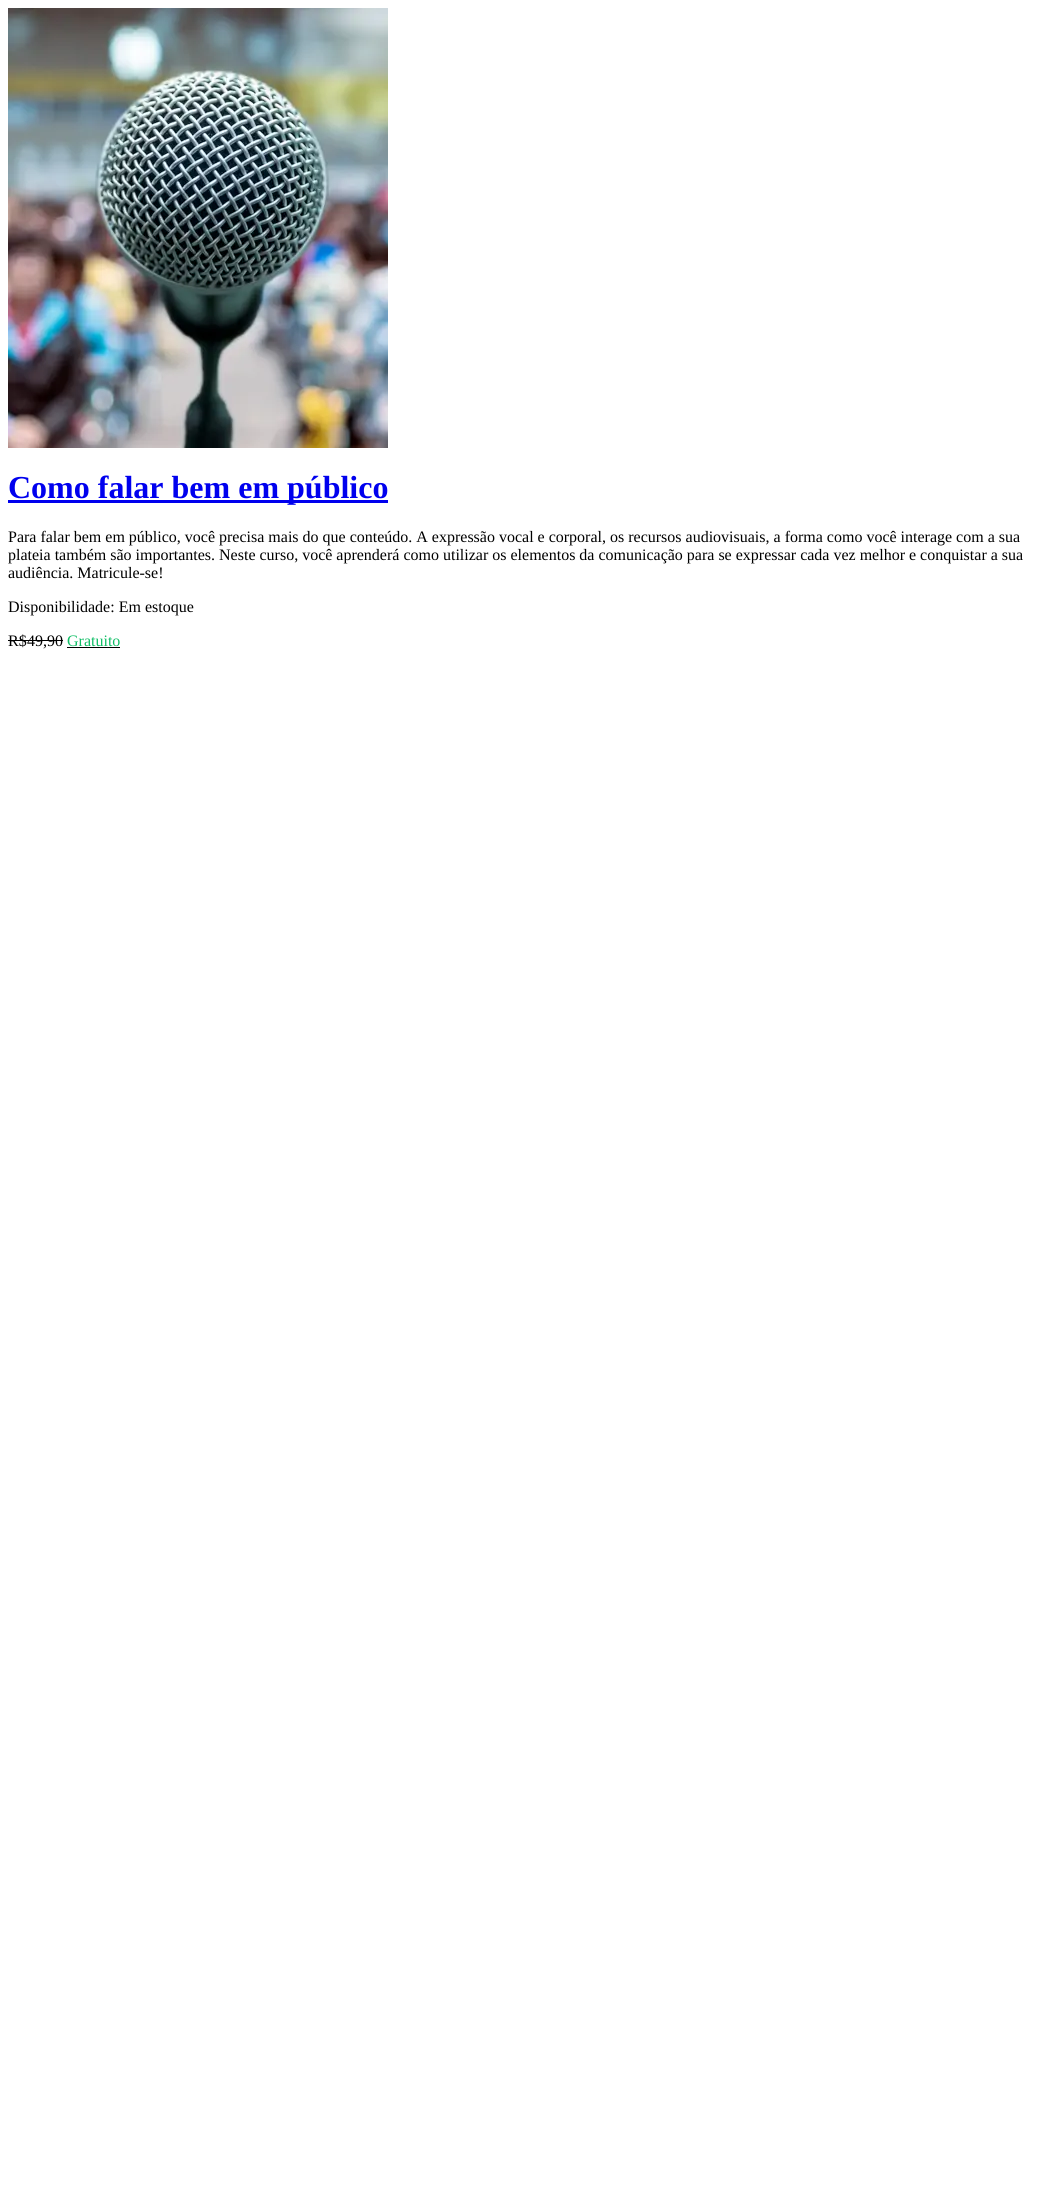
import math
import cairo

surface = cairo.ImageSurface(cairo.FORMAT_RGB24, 1046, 2203)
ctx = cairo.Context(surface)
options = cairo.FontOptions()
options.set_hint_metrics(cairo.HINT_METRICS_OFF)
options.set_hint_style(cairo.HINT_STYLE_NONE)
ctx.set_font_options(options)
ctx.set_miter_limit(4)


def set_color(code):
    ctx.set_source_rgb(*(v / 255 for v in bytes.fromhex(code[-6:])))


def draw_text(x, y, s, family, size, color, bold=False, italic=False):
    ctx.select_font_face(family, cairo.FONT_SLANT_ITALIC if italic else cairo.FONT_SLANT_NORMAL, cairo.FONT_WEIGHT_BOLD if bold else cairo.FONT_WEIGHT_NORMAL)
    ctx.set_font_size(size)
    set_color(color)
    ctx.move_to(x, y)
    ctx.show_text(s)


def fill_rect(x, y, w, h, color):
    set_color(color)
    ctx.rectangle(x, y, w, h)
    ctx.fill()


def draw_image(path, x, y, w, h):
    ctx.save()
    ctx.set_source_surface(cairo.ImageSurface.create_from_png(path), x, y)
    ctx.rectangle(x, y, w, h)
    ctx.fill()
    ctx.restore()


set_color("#ffffff")
ctx.paint()
draw_image("assets/img1.png", 8, 8, 380, 440)
fill_rect(8, 500, 380, 3, "#0000ee")
draw_text(8, 498, "Como falar bem em público", "Liberation Serif", 32, "#0000ee", bold=True)
draw_text(8, 542, "Para falar bem em público, você precisa mais do que conteúdo. A expressão vocal e corporal, os recursos audiovisuais, a forma como você interage com a sua", "Liberation Serif", 16, "#000000")
draw_text(8, 560, "plateia também são importantes. Neste curso, você aprenderá como utilizar os elementos da comunicação para se expressar cada vez melhor e conquistar a sua", "Liberation Serif", 16, "#000000")
draw_text(8, 578, "audiência. Matricule-se!", "Liberation Serif", 16, "#000000")
draw_text(8, 612, "Disponibilidade: Em estoque", "Liberation Serif", 16, "#000000")
draw_text(8, 646, "R$", "Liberation Serif", 16, "#000000")
fill_rect(8, 640, 19, 1, "#000000")
fill_rect(27, 640, 36, 1, "#000000")
draw_text(27, 646, "49,90", "Liberation Serif", 16, "#000000")
draw_text(67, 646, "Gratuito", "Liberation Serif", 16, "#0ebe65")
fill_rect(67, 647, 53, 1, "#000000")
surface.write_to_png("output.png")
